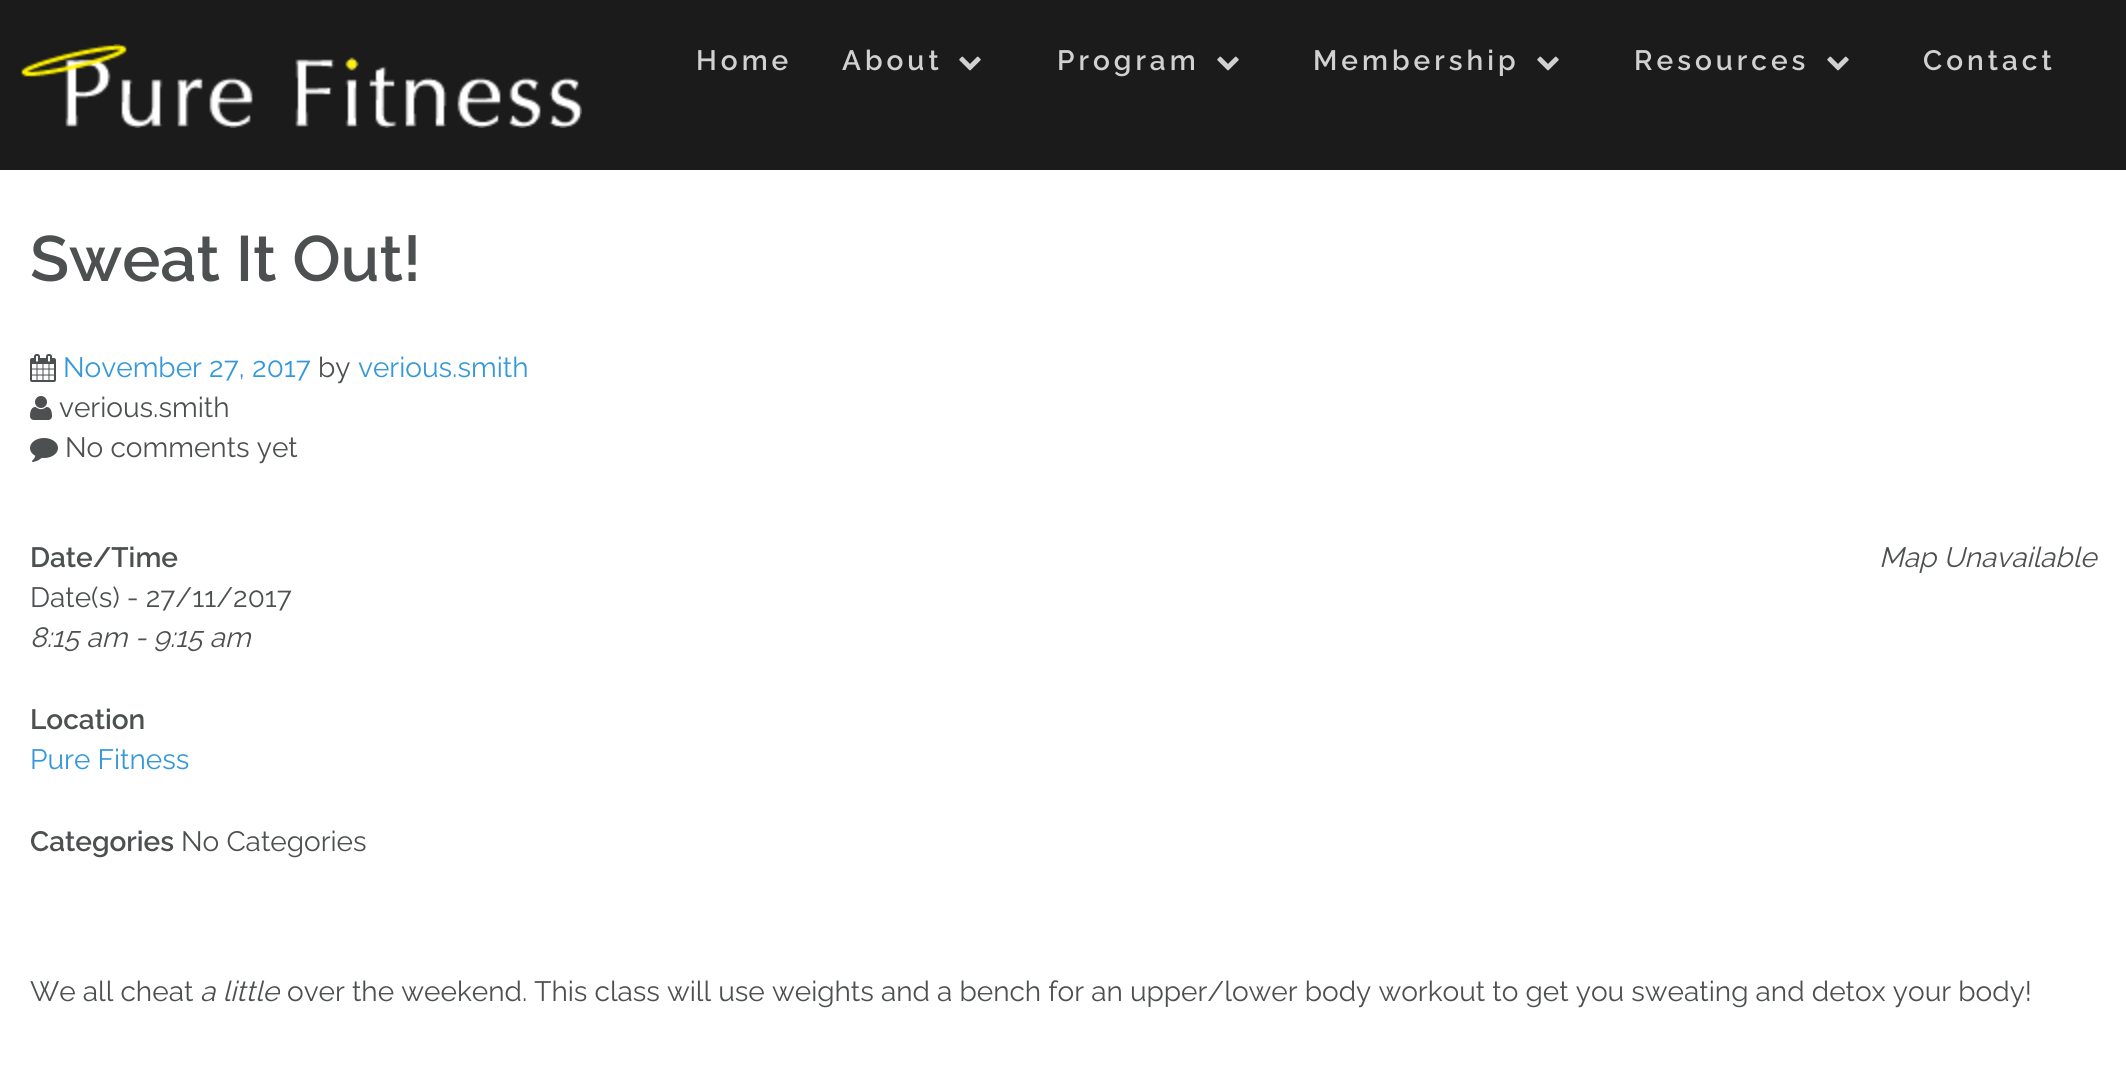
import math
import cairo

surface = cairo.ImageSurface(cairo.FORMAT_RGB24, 2126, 1092)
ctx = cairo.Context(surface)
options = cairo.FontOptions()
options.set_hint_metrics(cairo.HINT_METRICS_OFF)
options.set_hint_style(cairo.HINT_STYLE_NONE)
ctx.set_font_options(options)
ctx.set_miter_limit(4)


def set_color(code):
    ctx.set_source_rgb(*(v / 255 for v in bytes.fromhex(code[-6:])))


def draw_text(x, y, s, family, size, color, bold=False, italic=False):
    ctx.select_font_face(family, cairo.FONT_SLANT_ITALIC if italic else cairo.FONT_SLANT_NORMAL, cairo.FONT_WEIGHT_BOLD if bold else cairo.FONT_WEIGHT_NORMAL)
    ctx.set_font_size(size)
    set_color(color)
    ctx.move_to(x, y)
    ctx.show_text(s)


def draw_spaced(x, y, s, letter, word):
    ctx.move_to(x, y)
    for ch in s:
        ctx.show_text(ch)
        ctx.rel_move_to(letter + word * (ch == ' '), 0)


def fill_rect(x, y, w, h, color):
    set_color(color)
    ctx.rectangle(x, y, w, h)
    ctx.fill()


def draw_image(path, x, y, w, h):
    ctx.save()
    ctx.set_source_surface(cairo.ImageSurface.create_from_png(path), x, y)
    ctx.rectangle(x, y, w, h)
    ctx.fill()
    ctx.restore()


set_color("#ffffff")
ctx.paint()
fill_rect(0, 0, 2126, 170, "#1b1b1b")
draw_image("assets/img1.png", 21, 44, 561, 84)
ctx.select_font_face("Raleway SemiBold")
ctx.set_font_size(28)
set_color("#d1d1d1")
draw_spaced(696, 70, "Home", 4, 0)
draw_spaced(842, 70, "About", 4, 0)
draw_image("assets/img2.png", 959, 56, 22, 15)
draw_spaced(1057, 70, "Program", 4, 0)
draw_image("assets/img2.png", 1217, 56, 22, 15)
draw_spaced(1313, 70, "Membership", 4, 0)
draw_image("assets/img2.png", 1537, 56, 22, 15)
draw_spaced(1634, 70, "Resources", 4, 0)
draw_image("assets/img2.png", 1827, 56, 22, 15)
draw_spaced(1923, 70, "Contact", 4, 0)
draw_text(30, 281, "Sweat It Out!", "Raleway SemiBold", 64, "#4d5051")
draw_image("assets/img3.png", 30, 354, 26, 28)
draw_text(63, 377, "November 27, 2017", "Raleway", 28, "#3498db")
draw_text(318, 377, "by", "Raleway", 28, "#4d5051")
draw_text(358, 377, "verious.smith", "Raleway", 28, "#3498db")
draw_image("assets/img4.png", 30, 396, 22, 24)
draw_text(59, 417, "verious.smith", "Raleway", 28, "#4d5051")
draw_image("assets/img5.png", 30, 438, 28, 24)
draw_text(65, 457, "No comments yet", "Raleway", 28, "#4d5051")
draw_text(30, 567, "Date/Time", "Raleway SemiBold", 28, "#4d5051")
draw_text(30, 607, "Date(s) - 27/11/2017", "Raleway", 28, "#4d5051")
draw_text(30, 647, "8:15 am - 9:15 am", "Raleway", 28, "#4d5051", italic=True)
draw_text(1879, 567, "Map Unavailable", "Raleway", 28, "#4d5051", italic=True)
draw_text(30, 729, "Location", "Raleway SemiBold", 28, "#4d5051")
draw_text(30, 769, "Pure Fitness", "Raleway", 28, "#3498db")
draw_text(30, 851, "Categories", "Raleway SemiBold", 28, "#4d5051")
draw_text(181, 851, "No Categories", "Raleway", 28, "#4d5051")
draw_text(30, 1001, "We all cheat", "Raleway", 28, "#4d5051")
draw_text(200, 1001, "a little", "Raleway", 28, "#4d5051", italic=True)
draw_text(287, 1001, "over the weekend. This class will use weights and a bench for an upper/lower body workout to get you sweating and detox your body!", "Raleway", 28, "#4d5051")
surface.write_to_png("output.png")
